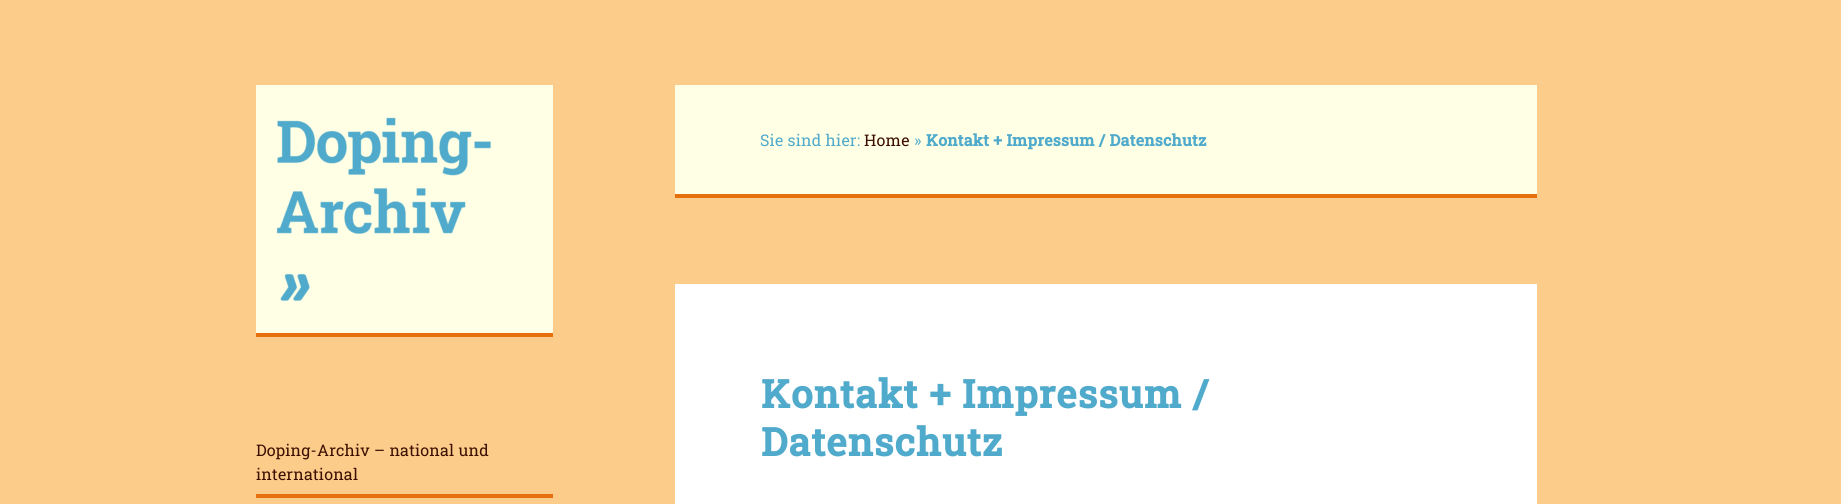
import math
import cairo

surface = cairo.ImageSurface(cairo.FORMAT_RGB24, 1841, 504)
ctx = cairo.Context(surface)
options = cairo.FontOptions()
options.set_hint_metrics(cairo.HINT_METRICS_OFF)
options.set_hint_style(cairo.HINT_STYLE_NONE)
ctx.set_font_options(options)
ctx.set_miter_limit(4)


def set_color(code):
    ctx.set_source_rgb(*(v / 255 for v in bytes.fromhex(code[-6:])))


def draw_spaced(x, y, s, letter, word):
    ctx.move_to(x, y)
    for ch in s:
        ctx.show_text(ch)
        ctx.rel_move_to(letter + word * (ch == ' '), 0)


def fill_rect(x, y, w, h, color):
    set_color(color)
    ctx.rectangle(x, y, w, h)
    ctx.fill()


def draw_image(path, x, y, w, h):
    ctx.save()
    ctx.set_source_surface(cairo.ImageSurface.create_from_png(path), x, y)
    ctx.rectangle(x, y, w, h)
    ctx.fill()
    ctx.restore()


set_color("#fccc8b")
ctx.paint()
fill_rect(675, 85, 862, 109, "#ffffe6")
fill_rect(675, 194, 862, 4, "#e5700c")
ctx.select_font_face("Roboto Slab")
ctx.set_font_size(16)
set_color("#50aacb")
draw_spaced(760, 146, "Sie sind hier:", 0.2, 0)
set_color("#3d0f00")
draw_spaced(864, 146, "Home", 0.2, 0)
set_color("#50aacb")
draw_spaced(914, 146, "»", 0.2, 0)
ctx.select_font_face("Roboto Slab", cairo.FONT_SLANT_NORMAL, cairo.FONT_WEIGHT_BOLD)
draw_spaced(926, 146, "Kontakt + Impressum / Datenschutz", 0.2, 0)
fill_rect(675, 284, 862, 220, "#ffffff")
ctx.set_font_size(39)
set_color("#50aacb")
draw_spaced(761, 408, "Kontakt + Impressum /", 1, 0)
draw_spaced(761, 456, "Datenschutz", 1, 0)
fill_rect(256, 85, 297, 248, "#ffffe6")
fill_rect(256, 333, 297, 4, "#e5700c")
draw_image("assets/img1.png", 276, 117, 215, 184)
ctx.select_font_face("Roboto Slab")
ctx.set_font_size(16)
set_color("#3d0f00")
draw_spaced(256, 456, "Doping-Archiv – national und", 0.2, 0)
draw_spaced(256, 480, "international", 0.2, 0)
fill_rect(256, 494, 297, 4, "#e5700c")
surface.write_to_png("output.png")
